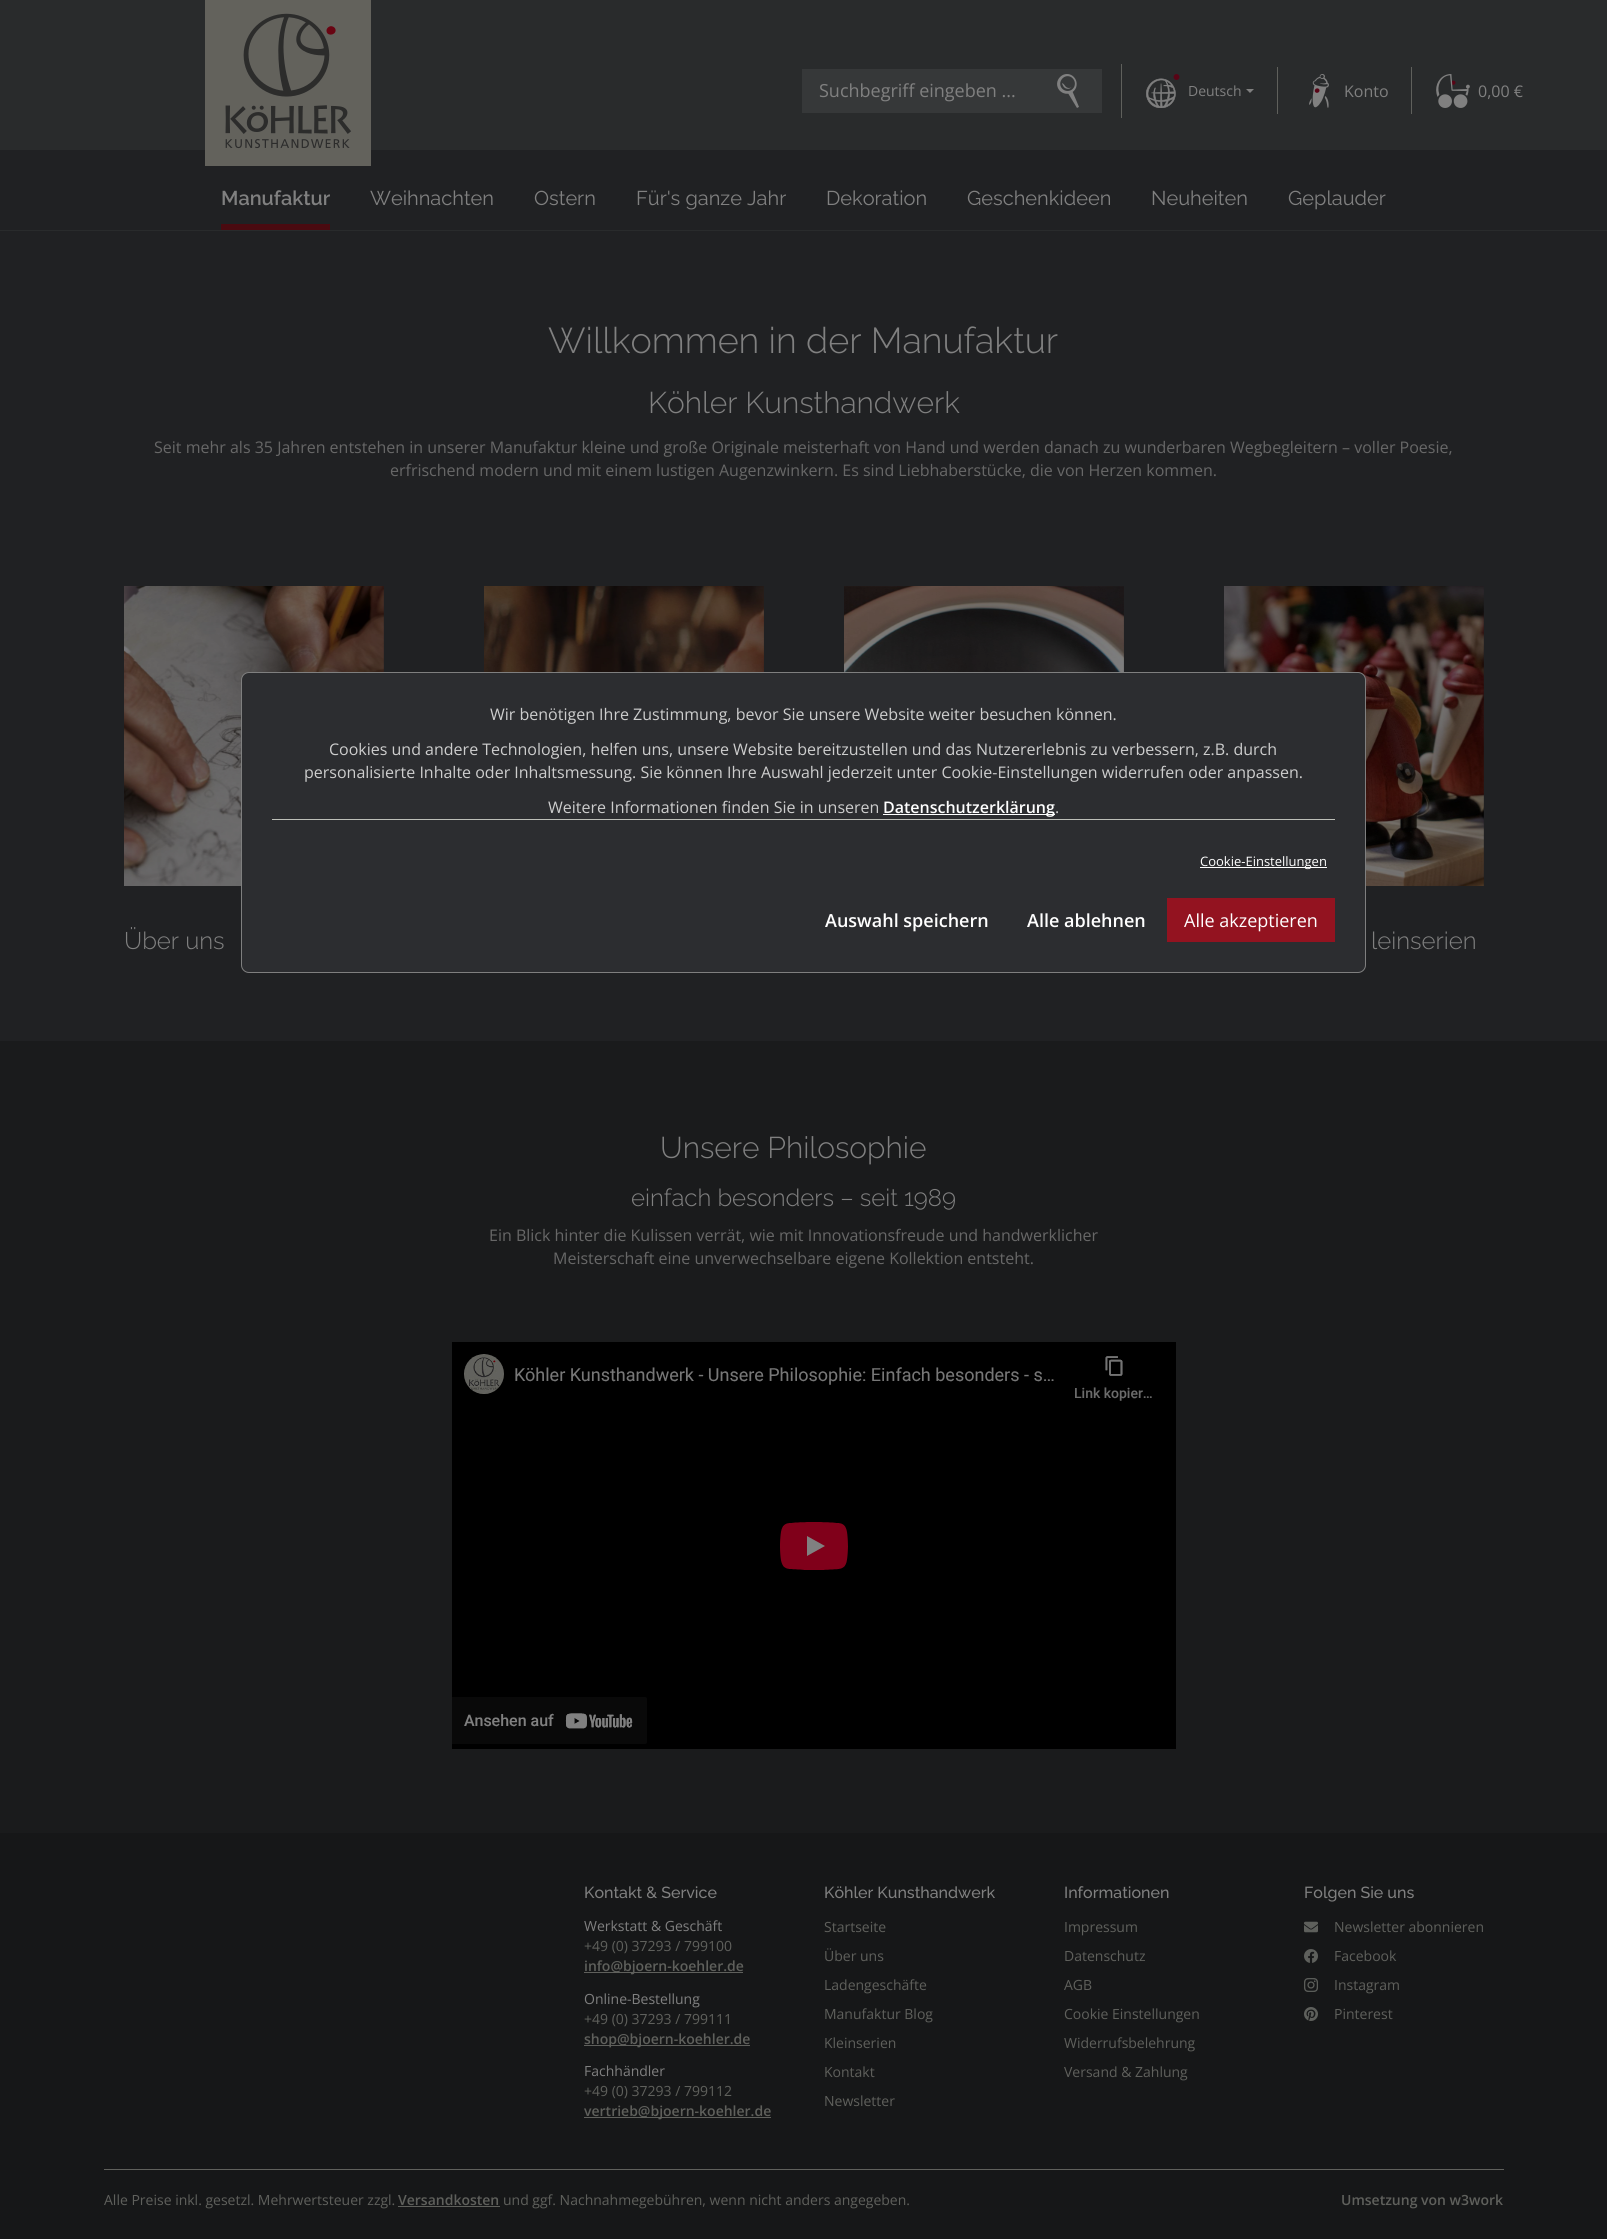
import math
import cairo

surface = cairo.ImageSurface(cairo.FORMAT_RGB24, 1607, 2239)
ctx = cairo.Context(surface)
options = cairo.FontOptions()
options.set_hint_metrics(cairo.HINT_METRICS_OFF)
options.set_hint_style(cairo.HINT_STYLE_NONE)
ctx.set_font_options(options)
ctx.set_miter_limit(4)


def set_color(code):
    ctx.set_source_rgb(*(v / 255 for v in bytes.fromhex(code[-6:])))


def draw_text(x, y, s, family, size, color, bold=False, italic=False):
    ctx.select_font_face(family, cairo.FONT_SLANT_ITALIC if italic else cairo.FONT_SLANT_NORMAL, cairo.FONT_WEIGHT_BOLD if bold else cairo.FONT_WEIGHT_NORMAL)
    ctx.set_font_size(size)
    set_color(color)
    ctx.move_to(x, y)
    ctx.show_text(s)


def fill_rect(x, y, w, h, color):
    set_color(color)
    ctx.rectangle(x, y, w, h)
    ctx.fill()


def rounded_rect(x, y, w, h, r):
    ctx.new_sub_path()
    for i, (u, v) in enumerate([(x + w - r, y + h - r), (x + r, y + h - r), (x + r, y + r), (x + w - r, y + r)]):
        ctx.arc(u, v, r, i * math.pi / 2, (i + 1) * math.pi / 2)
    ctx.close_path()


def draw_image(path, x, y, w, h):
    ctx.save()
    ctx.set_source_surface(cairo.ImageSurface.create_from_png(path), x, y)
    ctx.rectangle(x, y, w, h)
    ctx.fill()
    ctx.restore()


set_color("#202123")
ctx.paint()
fill_rect(0, 0, 1607, 150, "#292b2c")
draw_image("assets/img1.png", 205, 0, 166, 166)
fill_rect(803, 70, 232, 42, "#363839")
fill_rect(802, 69, 234, 1, "#363839")
fill_rect(802, 112, 234, 1, "#363839")
fill_rect(802, 69, 1, 44, "#363839")
draw_text(819, 97, "Suchbegriff eingeben ...", "Open Sans", 18, "#808080")
fill_rect(1035, 69, 67, 44, "#363839")
draw_image("assets/img2.png", 1057, 74, 22, 34)
fill_rect(1121, 64, 1, 54, "#5f605c")
draw_image("assets/img3.png", 1146, 74, 34, 34)
draw_text(1188, 96, "Deutsch", "Open Sans", 14, "#808080")
ctx.new_path()
ctx.move_to(1246, 89)
ctx.line_to(1254, 89)
ctx.line_to(1250, 93)
ctx.close_path()
ctx.fill()
fill_rect(1277, 67, 1, 47, "#5f605c")
draw_image("assets/img4.png", 1309, 74, 20, 34)
draw_text(1344, 97, "Konto", "Open Sans", 16, "#808080")
fill_rect(1411, 67, 1, 47, "#5f605c")
draw_image("assets/img5.png", 1436, 74, 34, 34)
draw_text(1478, 97, "0,00 €", "Open Sans", 16, "#808080")
draw_text(221, 205, "Manufaktur", "Raleway SemiBold", 20, "#808080")
fill_rect(221, 224, 109, 6, "#4a0a10")
draw_text(370, 205, "Weihnachten", "Raleway", 20, "#808080")
draw_text(534, 205, "Ostern", "Raleway", 20, "#808080")
draw_text(636, 205, "Für's ganze Jahr", "Raleway", 20, "#808080")
draw_text(826, 205, "Dekoration", "Raleway", 20, "#808080")
draw_text(967, 205, "Geschenkideen", "Raleway", 20, "#808080")
draw_text(1151, 205, "Neuheiten", "Raleway", 20, "#808080")
draw_text(1288, 205, "Geplauder", "Raleway", 20, "#808080")
fill_rect(0, 230, 1607, 1, "#292b2c")
draw_text(548, 353, "Willkommen in der Manufaktur", "Raleway Light", 36, "#808080")
draw_text(648, 413, "Köhler Kunsthandwerk", "Raleway Light", 30, "#808080")
draw_text(154, 453, "Seit mehr als 35 Jahren entstehen in unserer Manufaktur kleine und große Originale meisterhaft von Hand und werden danach zu wunderbaren Wegbegleitern – voller Poesie,", "Open Sans", 16, "#676767")
draw_text(390, 476, "erfrischend modern und mit einem lustigen Augenzwinkern. Es sind Liebhaberstücke, die von Herzen kommen.", "Open Sans", 16, "#676767")
draw_image("assets/img6.png", 484, 586, 280, 86)
draw_image("assets/img7.png", 844, 586, 280, 86)
draw_image("assets/img8.png", 124, 586, 260, 300)
draw_text(124, 949, "Über uns", "Raleway Light", 24, "#808080")
draw_image("assets/img9.png", 1224, 586, 260, 300)
draw_text(1371, 949, "leinserien", "Raleway Light", 24, "#808080")
fill_rect(0, 1041, 1607, 792, "#1a1b1c")
draw_text(660, 1158, "Unsere Philosophie", "Raleway Light", 30, "#808080")
draw_text(631, 1206, "einfach besonders – seit 1989", "Raleway Light", 24, "#808080")
draw_text(489, 1241, "Ein Blick hinter die Kulissen verrät, wie mit Innovationsfreude und handwerklicher", "Open Sans", 16, "#676767")
draw_text(553, 1264, "Meisterschaft eine unverwechselbare eigene Kollektion entsteht.", "Open Sans", 16, "#676767")
draw_image("assets/img10.png", 452, 1342, 724, 407)
set_color("#2c2d30")
rounded_rect(241.5, 672.5, 1124, 300, 7.5)
ctx.fill_preserve()
set_color("#7f7f7f")
ctx.set_line_width(1)
ctx.stroke()
fill_rect(272, 819, 1063, 1, "#bdbfb8")
draw_text(490, 720, "Wir benötigen Ihre Zustimmung, bevor Sie unsere Website weiter besuchen können.", "Open Sans", 16, "#cdcdcd")
draw_text(329, 755, "Cookies und andere Technologien, helfen uns, unsere Website bereitzustellen und das Nutzererlebnis zu verbessern, z.B. durch", "Open Sans", 16, "#cdcdcd")
draw_text(304, 778, "personalisierte Inhalte oder Inhaltsmessung. Sie können Ihre Auswahl jederzeit unter Cookie-Einstellungen widerrufen oder anpassen.", "Open Sans", 16, "#cdcdcd")
draw_text(548, 813, "Weitere Informationen finden Sie in unseren", "Open Sans", 16, "#cdcdcd")
fill_rect(883, 814, 172, 1, "#ffffff")
draw_text(883, 813, "Datenschutzerklärung", "Open Sans SemiBold", 16, "#ffffff")
draw_text(1055, 813, ".", "Open Sans", 16, "#cdcdcd")
fill_rect(1200, 867, 127, 1, "#ffffff")
draw_text(1200, 866, "Cookie-Einstellungen", "Open Sans", 13, "#ffffff")
draw_text(825, 927, "Auswahl speichern", "Open Sans SemiBold", 18, "#ffffff")
draw_text(1027, 927, "Alle ablehnen", "Open Sans SemiBold", 18, "#ffffff")
fill_rect(1167, 898, 168, 44, "#931320")
draw_text(1184, 927, "Alle akzeptieren", "Open Sans", 18, "#ffffff")
fill_rect(0, 1833, 1607, 406, "#161718")
draw_text(584, 1898, "Kontakt & Service", "Raleway Medium", 16, "#808080")
draw_text(584, 1931, "Werkstatt & Geschäft", "Open Sans", 14, "#808080")
draw_text(584, 1951, "+49 (0) 37293 / 799100", "Open Sans", 14, "#5f605c")
fill_rect(584, 1972, 159, 1, "#5f605c")
draw_text(584, 1971, "info@bjoern-koehler.de", "Open Sans SemiBold", 14, "#5f605c")
draw_text(584, 2004, "Online-Bestellung", "Open Sans", 14, "#808080")
draw_text(584, 2024, "+49 (0) 37293 / 799111", "Open Sans", 14, "#5f605c")
fill_rect(584, 2045, 166, 1, "#5f605c")
draw_text(584, 2044, "shop@bjoern-koehler.de", "Open Sans SemiBold", 14, "#5f605c")
draw_text(584, 2076, "Fachhändler", "Open Sans", 14, "#808080")
draw_text(584, 2096, "+49 (0) 37293 / 799112", "Open Sans", 14, "#5f605c")
fill_rect(584, 2117, 187, 1, "#5f605c")
draw_text(584, 2116, "vertrieb@bjoern-koehler.de", "Open Sans SemiBold", 14, "#5f605c")
draw_text(824, 1898, "Köhler Kunsthandwerk", "Raleway Medium", 16, "#808080")
draw_text(824, 1932, "Startseite", "Open Sans", 14, "#5f605c")
draw_text(824, 1961, "Über uns", "Open Sans", 14, "#5f605c")
draw_text(824, 1990, "Ladengeschäfte", "Open Sans", 14, "#5f605c")
draw_text(824, 2019, "Manufaktur Blog", "Open Sans", 14, "#5f605c")
draw_text(824, 2048, "Kleinserien", "Open Sans", 14, "#5f605c")
draw_text(824, 2077, "Kontakt", "Open Sans", 14, "#5f605c")
draw_text(824, 2106, "Newsletter", "Open Sans", 14, "#5f605c")
draw_text(1064, 1898, "Informationen", "Raleway Medium", 16, "#808080")
draw_text(1064, 1932, "Impressum", "Open Sans", 14, "#5f605c")
draw_text(1064, 1961, "Datenschutz", "Open Sans", 14, "#5f605c")
draw_text(1064, 1990, "AGB", "Open Sans", 14, "#5f605c")
draw_text(1064, 2019, "Cookie Einstellungen", "Open Sans", 14, "#5f605c")
draw_text(1064, 2048, "Widerrufsbelehrung", "Open Sans", 14, "#5f605c")
draw_text(1064, 2077, "Versand & Zahlung", "Open Sans", 14, "#5f605c")
draw_text(1304, 1898, "Folgen Sie uns", "Raleway Medium", 16, "#808080")
draw_image("assets/img11.png", 1304, 1921, 14, 12)
draw_text(1334, 1932, "Newsletter abonnieren", "Open Sans", 14, "#5f605c")
draw_image("assets/img12.png", 1304, 1949, 14, 14)
draw_text(1334, 1961, "Facebook", "Open Sans", 14, "#5f605c")
draw_image("assets/img13.png", 1304, 1978, 14, 14)
draw_text(1334, 1990, "Instagram", "Open Sans", 14, "#5f605c")
draw_image("assets/img14.png", 1304, 2007, 14, 14)
draw_text(1334, 2019, "Pinterest", "Open Sans", 14, "#5f605c")
fill_rect(104, 2169, 1400, 1, "#5f605c")
draw_text(104, 2205, "Alle Preise inkl. gesetzl. Mehrwertsteuer zzgl.", "Open Sans", 14, "#5f605c")
draw_text(398, 2205, "Versandkosten", "Open Sans SemiBold", 14, "#5f605c")
fill_rect(398, 2206, 102, 1, "#5f605c")
draw_text(503, 2205, "und ggf. Nachnahmegebühren, wenn nicht anders angegeben.", "Open Sans", 14, "#5f605c")
draw_text(1341, 2205, "Umsetzung von w3work", "Open Sans SemiBold", 14, "#5f605c")
surface.write_to_png("output.png")
